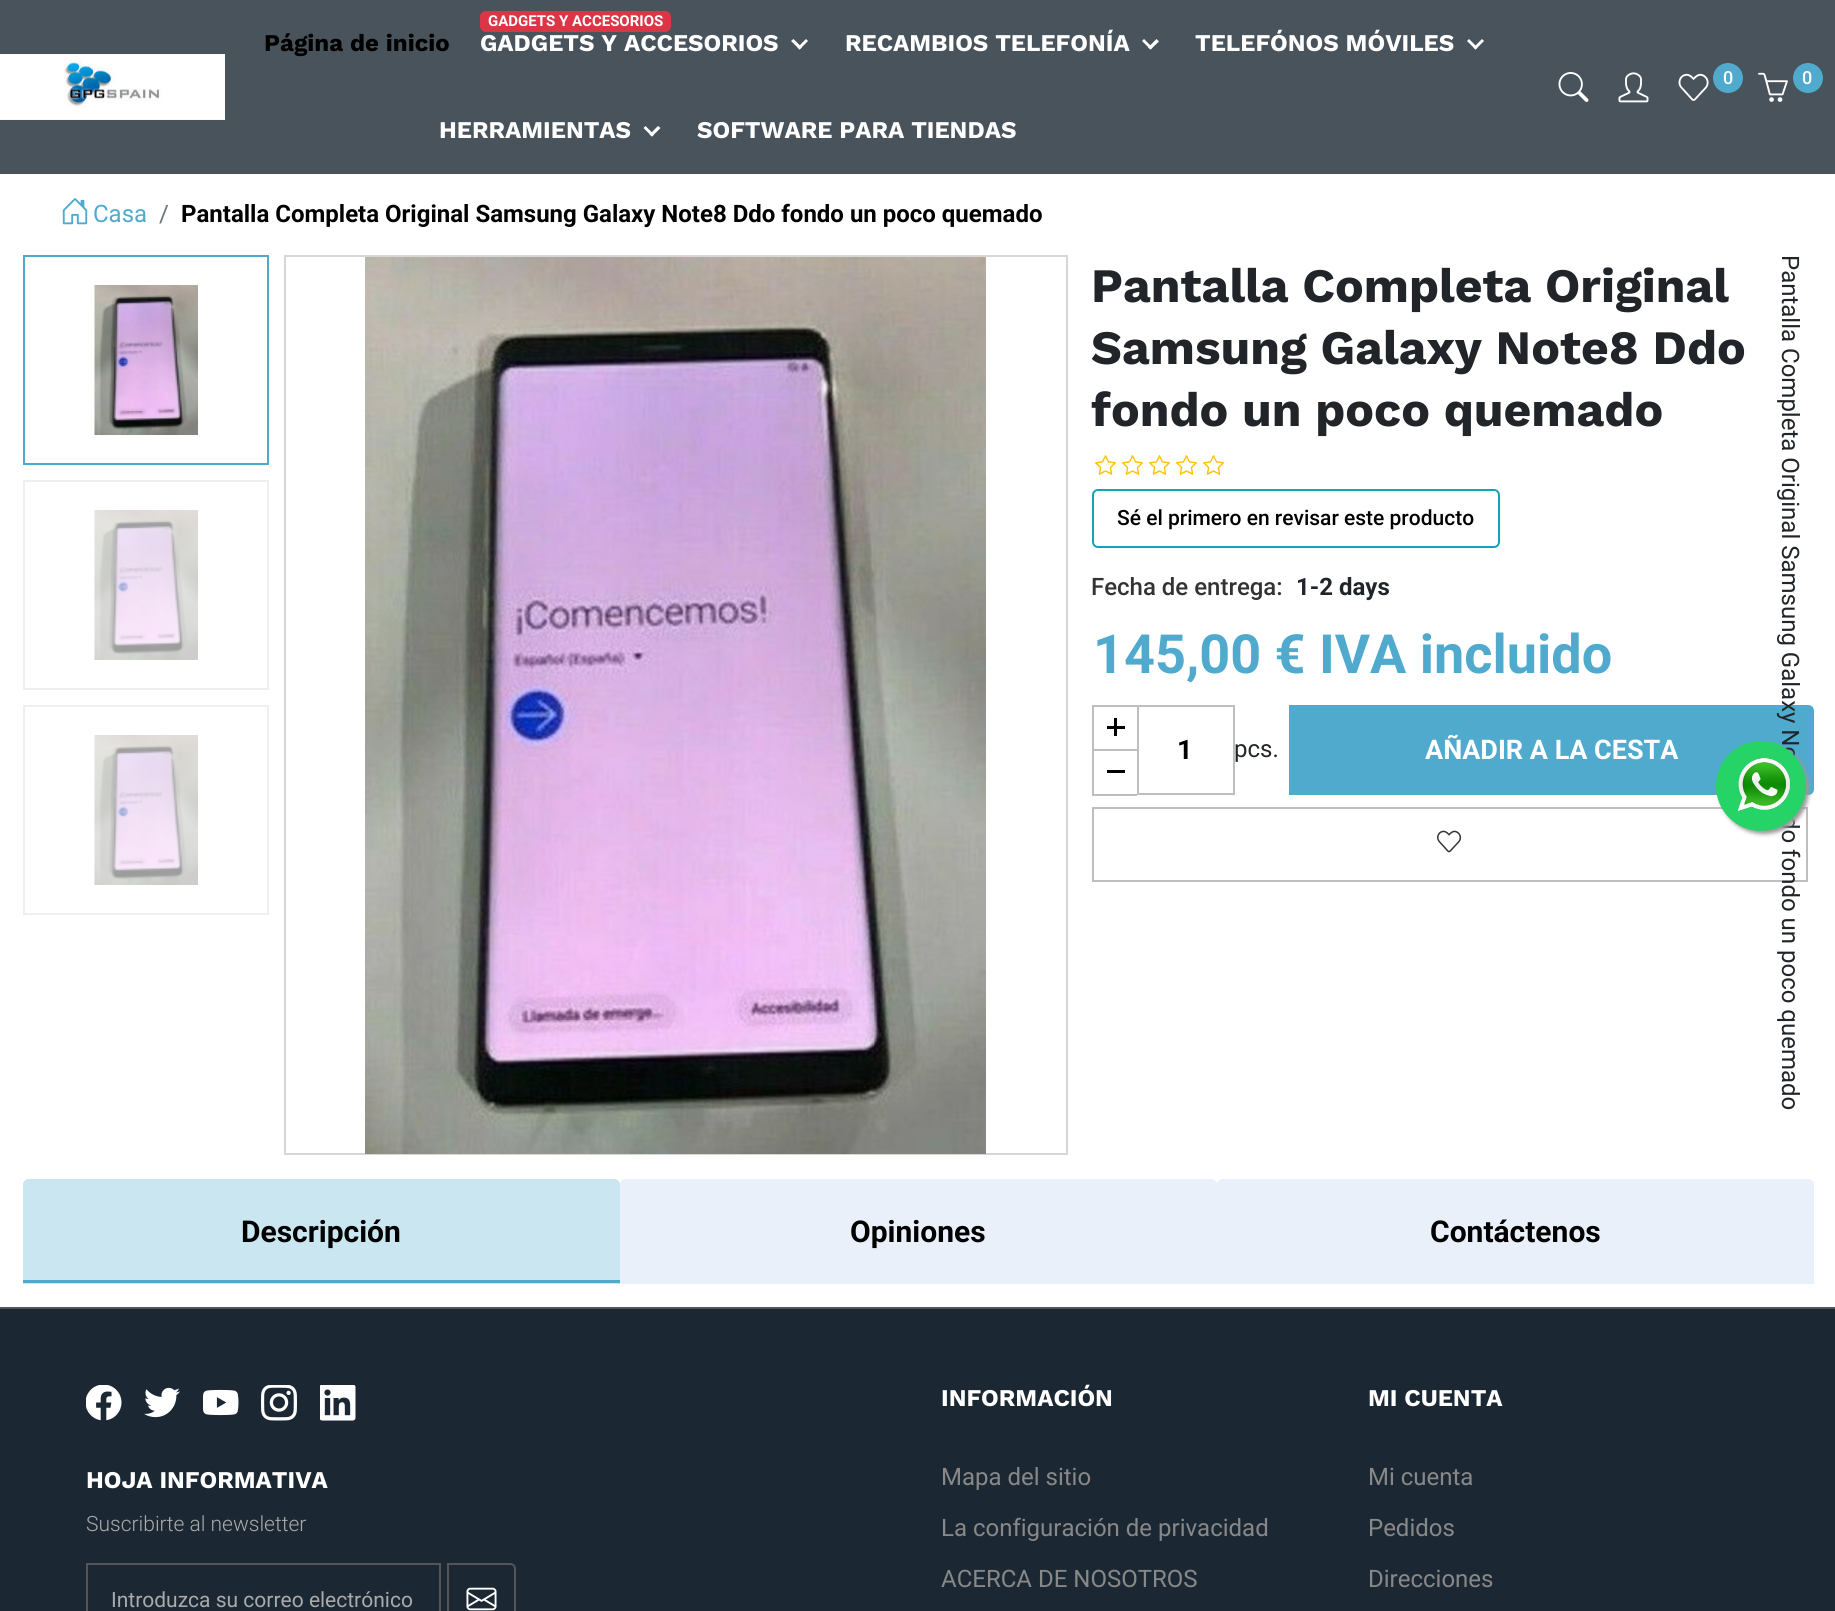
import math
import cairo

surface = cairo.ImageSurface(cairo.FORMAT_RGB24, 1835, 1611)
ctx = cairo.Context(surface)
options = cairo.FontOptions()
options.set_hint_metrics(cairo.HINT_METRICS_OFF)
options.set_hint_style(cairo.HINT_STYLE_NONE)
ctx.set_font_options(options)
ctx.set_miter_limit(4)


def set_color(code):
    ctx.set_source_rgb(*(v / 255 for v in bytes.fromhex(code[-6:])))


def draw_text(x, y, s, family, size, color, bold=False, italic=False):
    ctx.select_font_face(family, cairo.FONT_SLANT_ITALIC if italic else cairo.FONT_SLANT_NORMAL, cairo.FONT_WEIGHT_BOLD if bold else cairo.FONT_WEIGHT_NORMAL)
    ctx.set_font_size(size)
    set_color(color)
    ctx.move_to(x, y)
    ctx.show_text(s)


def fill_rect(x, y, w, h, color):
    set_color(color)
    ctx.rectangle(x, y, w, h)
    ctx.fill()


def rounded_rect(x, y, w, h, r):
    ctx.new_sub_path()
    for i, (u, v) in enumerate([(x + w - r, y + h - r), (x + r, y + h - r), (x + r, y + r), (x + w - r, y + r)]):
        ctx.arc(u, v, r, i * math.pi / 2, (i + 1) * math.pi / 2)
    ctx.close_path()


def draw_shadow(x, y, w, h, r, blur, alpha):
    ctx.push_group_with_content(cairo.CONTENT_ALPHA)
    ctx.set_operator(cairo.OPERATOR_SOURCE)
    for i in range(15, -16, -2):
        e = blur * i / 6
        if min(w, h) + 2 * e > 0:
            ctx.set_source_rgba(0, 0, 0, alpha * math.erfc((i - 1) / 8.5) / 2)
            rounded_rect(x - e, y - e, w + 2 * e, h + 2 * e, max(0, min(r + e + blur * .6, min(w, h) / 2 + e)))
            ctx.fill()
    ctx.mask(ctx.pop_group())


def draw_image(path, x, y, w, h):
    ctx.save()
    ctx.set_source_surface(cairo.ImageSurface.create_from_png(path), x, y)
    ctx.rectangle(x, y, w, h)
    ctx.fill()
    ctx.restore()


set_color("#ffffff")
ctx.paint()
fill_rect(0, 0, 1835, 174, "#49535c")
draw_image("assets/img1.png", 0, 54, 225, 66)
draw_text(264, 51, "Página de inicio", "Work Sans", 24, "#000000", bold=True)
set_color("#dc3545")
rounded_rect(480, 11, 191, 21, 6)
ctx.fill()
draw_text(488, 26, "GADGETS Y ACCESORIOS", "Roboto", 15, "#ffffff", bold=True)
draw_text(480, 51, "GADGETS Y ACCESORIOS", "Work Sans", 24, "#ffffff", bold=True)
ctx.new_path()
ctx.move_to(808, 41)
ctx.line_to(799.5, 49.5)
ctx.line_to(797.5, 47.5)
ctx.line_to(806, 39)
ctx.close_path()
ctx.fill()
ctx.new_path()
ctx.move_to(802, 47.5)
ctx.line_to(799.5, 49.5)
ctx.line_to(791, 41)
ctx.line_to(793.5, 39)
ctx.close_path()
ctx.fill()
draw_text(845, 51, "RECAMBIOS TELEFONÍA", "Work Sans", 24, "#ffffff", bold=True)
ctx.new_path()
ctx.move_to(1159, 41.5)
ctx.line_to(1150.5, 49.5)
ctx.line_to(1148, 47.5)
ctx.line_to(1156.5, 39)
ctx.close_path()
ctx.fill()
ctx.new_path()
ctx.move_to(1152.5, 47.5)
ctx.line_to(1150.5, 49.5)
ctx.line_to(1142, 41)
ctx.line_to(1144, 39)
ctx.close_path()
ctx.fill()
draw_text(1195, 51, "TELEFÓNOS MÓVILES", "Work Sans", 24, "#ffffff", bold=True)
ctx.new_path()
ctx.move_to(1484, 41)
ctx.line_to(1475.5, 49.5)
ctx.line_to(1473.5, 47.5)
ctx.line_to(1482, 39)
ctx.close_path()
ctx.fill()
ctx.new_path()
ctx.move_to(1477.5, 47.5)
ctx.line_to(1475.5, 49.5)
ctx.line_to(1467, 41)
ctx.line_to(1469, 39)
ctx.close_path()
ctx.fill()
draw_text(439, 138, "HERRAMIENTAS", "Work Sans", 24, "#ffffff", bold=True)
ctx.new_path()
ctx.move_to(660.5, 128)
ctx.line_to(652, 136.5)
ctx.line_to(649.5, 134.5)
ctx.line_to(658, 126)
ctx.close_path()
ctx.fill()
ctx.new_path()
ctx.move_to(654, 134.5)
ctx.line_to(652, 136.5)
ctx.line_to(643.5, 128)
ctx.line_to(645.5, 126)
ctx.close_path()
ctx.fill()
draw_text(697, 138, "SOFTWARE PARA TIENDAS", "Work Sans", 24, "#ffffff", bold=True)
draw_image("assets/img2.png", 1558, 72, 31, 30)
draw_image("assets/img3.png", 1618, 72, 31, 31)
draw_image("assets/img4.png", 1678, 73, 31, 28)
set_color("#4faacd")
ctx.arc(1728, 78, 15, 0, 2 * math.pi)
ctx.fill()
draw_text(1723, 84, "0", "Roboto Medium", 18, "#ffffff")
draw_image("assets/img5.png", 1758, 72, 30, 30)
set_color("#4faacd")
ctx.arc(1808, 78, 15, 0, 2 * math.pi)
ctx.fill()
draw_text(1802, 84, "0", "Roboto Medium", 18, "#ffffff")
draw_image("assets/img6.png", 62, 198, 26, 27)
draw_text(93, 222, "Casa", "Roboto", 24, "#4faacd")
draw_text(159, 222, "/", "Roboto", 24, "#6c757d")
draw_text(181, 222, "Pantalla Completa Original Samsung Galaxy Note8 Ddo fondo un poco quemado", "Roboto", 24, "#000000", bold=True)
ctx.rectangle(24, 256, 244, 208)
set_color("#4faacd")
ctx.stroke()
draw_image("assets/img7.png", 94, 285, 104, 150)
ctx.rectangle(24, 481, 244, 208)
set_color("#efefef")
ctx.stroke()
draw_image("assets/img8.png", 94, 510, 104, 150)
ctx.rectangle(24, 706, 244, 208)
ctx.stroke()
draw_image("assets/img8.png", 94, 735, 104, 150)
ctx.rectangle(285, 256, 782, 898)
set_color("#d6d6d6")
ctx.stroke()
draw_image("assets/img9.png", 365, 257, 621, 897)
draw_text(1091, 302, "Pantalla Completa Original", "Work Sans", 48, "#212529", bold=True)
draw_text(1091, 364, "Samsung Galaxy Note8 Ddo", "Work Sans", 48, "#212529", bold=True)
draw_text(1091, 426, "fondo un poco quemado", "Work Sans", 48, "#212529", bold=True)
set_color("#4faacd")
ctx.new_path()
ctx.move_to(1290, 706)
ctx.line_to(1808, 706)
ctx.curve_to(1811, 706, 1813, 708, 1813, 711)
ctx.line_to(1813, 789)
ctx.curve_to(1813, 792, 1811, 794, 1808, 794)
ctx.line_to(1290, 794)
ctx.close_path()
ctx.fill_preserve()
ctx.stroke()
ctx.rectangle(1093, 808, 714, 73)
set_color("#bebebe")
ctx.stroke()
ctx.save()
ctx.translate(1782, 255)
ctx.rotate(90 * math.pi / 180)
draw_text(0, 0, "Pantalla Completa Original Samsung Galaxy Note8 Ddo fondo un poco quemado", "Roboto", 24, "#212529")
ctx.restore()
draw_image("assets/img10.png", 1095, 455, 21, 20)
draw_image("assets/img10.png", 1122, 455, 21, 20)
draw_image("assets/img10.png", 1149, 455, 21, 20)
draw_image("assets/img10.png", 1176, 455, 21, 20)
draw_image("assets/img10.png", 1203, 455, 21, 20)
rounded_rect(1093, 490, 406, 57, 5)
set_color("#17a2b8")
ctx.stroke()
draw_text(1117, 525, "Sé el primero en revisar este producto", "Roboto Medium", 21, "#000000")
draw_text(1091, 595, "Fecha de entrega:", "Roboto Medium", 24, "#333333")
draw_text(1296, 595, "1-2 days", "Roboto", 24, "#212529", bold=True)
draw_text(1093, 673, "145,00 € IVA incluido", "Roboto", 54, "#4faacd", bold=True)
fill_rect(1092, 705, 45, 2, "#bebebe")
fill_rect(1092, 749, 45, 2, "#bebebe")
fill_rect(1092, 705, 2, 45, "#bebebe")
fill_rect(1107, 726, 18, 3, "#000000")
fill_rect(1114, 718, 3, 18, "#000000")
fill_rect(1092, 794, 45, 2, "#bebebe")
fill_rect(1092, 750, 2, 45, "#bebebe")
fill_rect(1107, 770, 18, 3, "#000000")
ctx.rectangle(1138, 706, 96, 88)
set_color("#bebebe")
ctx.stroke()
draw_text(1177, 759, "1", "Roboto", 27, "#000000", bold=True)
draw_text(1234, 757, "pcs.", "Roboto", 24, "#212529")
draw_text(1425, 759, "AÑADIR A LA CESTA", "Roboto", 27, "#ffffff", bold=True)
draw_image("assets/img11.png", 1437, 830, 25, 23)
ctx.set_source_rgba(0.31, 0.667, 0.804, 0.3)
ctx.new_path()
ctx.move_to(29, 1179)
ctx.line_to(614, 1179)
ctx.curve_to(617.5, 1179, 620, 1181.5, 620, 1185)
ctx.line_to(620, 1284)
ctx.line_to(23, 1284)
ctx.line_to(23, 1185)
ctx.curve_to(23, 1181.5, 25.5, 1179, 29, 1179)
ctx.close_path()
ctx.fill()
draw_text(241, 1242, "Descripción", "Roboto", 30, "#000000", bold=True)
fill_rect(23, 1280, 597, 3, "#4faacd")
set_color("#eaf0fa")
ctx.new_path()
ctx.move_to(626, 1179)
ctx.line_to(1211, 1179)
ctx.curve_to(1214.5, 1179, 1217, 1181.5, 1217, 1185)
ctx.line_to(1217, 1284)
ctx.line_to(620, 1284)
ctx.line_to(620, 1185)
ctx.curve_to(620, 1181.5, 622.5, 1179, 626, 1179)
ctx.close_path()
ctx.fill()
draw_text(850, 1242, "Opiniones", "Roboto", 30, "#000000", bold=True)
set_color("#eaf0fa")
ctx.new_path()
ctx.move_to(1223, 1179)
ctx.line_to(1808, 1179)
ctx.curve_to(1811.5, 1179, 1814, 1181.5, 1814, 1185)
ctx.line_to(1814, 1284)
ctx.line_to(1217, 1284)
ctx.line_to(1217, 1185)
ctx.curve_to(1217, 1181.5, 1219.5, 1179, 1223, 1179)
ctx.close_path()
ctx.fill()
draw_text(1430, 1242, "Contáctenos", "Roboto", 30, "#000000", bold=True)
fill_rect(0, 1309, 1835, 302, "#1b2833")
fill_rect(0, 1307, 1835, 2, "#555555")
draw_image("assets/img12.png", 86, 1385, 36, 36)
draw_image("assets/img13.png", 144, 1387, 36, 31)
draw_image("assets/img14.png", 203, 1389, 36, 27)
draw_image("assets/img15.png", 261, 1385, 36, 36)
draw_image("assets/img16.png", 320, 1385, 36, 36)
draw_text(86, 1488, "HOJA INFORMATIVA", "Work Sans", 24, "#ffffff", bold=True)
draw_text(86, 1531, "Suscribirte al newsletter", "Roboto Light", 21, "#aaaaaa")
ctx.rectangle(87, 1564, 353, 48)
set_color("#555555")
ctx.stroke()
draw_text(111, 1607, "Introduzca su correo electrónico", "Roboto", 21, "#aaaaaa")
ctx.new_path()
ctx.move_to(448, 1564)
ctx.line_to(510, 1564)
ctx.curve_to(513, 1564, 515, 1566, 515, 1569)
ctx.line_to(515, 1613)
ctx.curve_to(515, 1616, 513, 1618, 510, 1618)
ctx.line_to(448, 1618)
ctx.close_path()
set_color("#555555")
ctx.stroke()
draw_image("assets/img17.png", 466, 1587, 31, 24)
draw_text(941, 1406, "INFORMACIÓN", "Work Sans", 24, "#ffffff", bold=True)
draw_text(941, 1485, "Mapa del sitio", "Roboto", 24, "#888888")
draw_text(941, 1536, "La configuración de privacidad", "Roboto", 24, "#888888")
draw_text(941, 1587, "ACERCA DE NOSOTROS", "Roboto", 24, "#888888")
draw_text(1368, 1406, "MI CUENTA", "Work Sans", 24, "#ffffff", bold=True)
draw_text(1368, 1485, "Mi cuenta", "Roboto", 24, "#888888")
draw_text(1368, 1536, "Pedidos", "Roboto", 24, "#888888")
draw_text(1368, 1587, "Direcciones", "Roboto", 24, "#888888")
set_color("#999999")
draw_shadow(1719, 744, 90, 90, 45, 2, 1)
set_color("#25d366")
ctx.arc(1761, 786, 45, 0, 2 * math.pi)
ctx.fill()
draw_image("assets/img18.png", 1737, 758, 54, 54)
surface.write_to_png("output.png")
